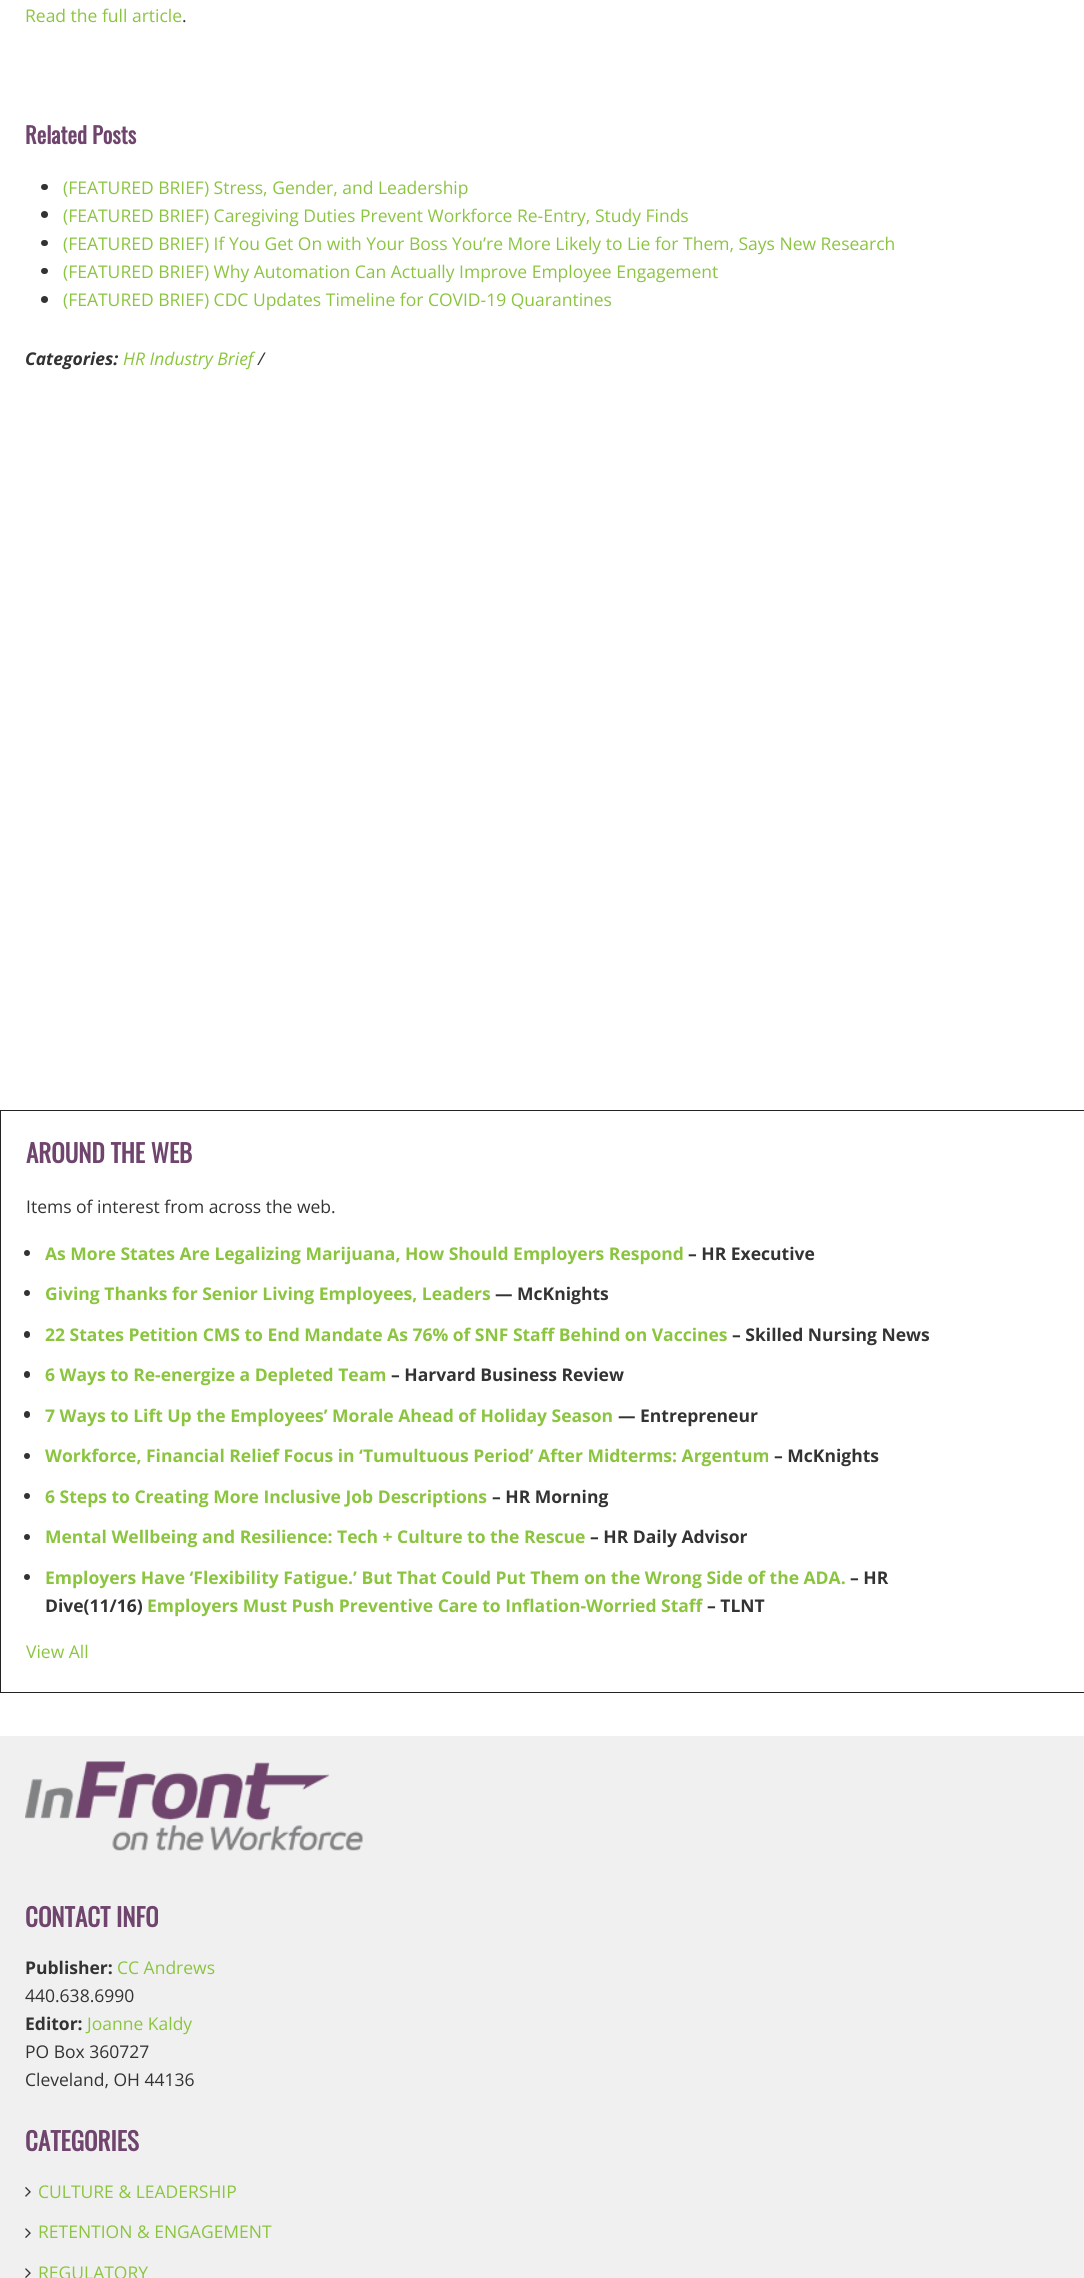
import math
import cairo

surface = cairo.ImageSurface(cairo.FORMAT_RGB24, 1084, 2278)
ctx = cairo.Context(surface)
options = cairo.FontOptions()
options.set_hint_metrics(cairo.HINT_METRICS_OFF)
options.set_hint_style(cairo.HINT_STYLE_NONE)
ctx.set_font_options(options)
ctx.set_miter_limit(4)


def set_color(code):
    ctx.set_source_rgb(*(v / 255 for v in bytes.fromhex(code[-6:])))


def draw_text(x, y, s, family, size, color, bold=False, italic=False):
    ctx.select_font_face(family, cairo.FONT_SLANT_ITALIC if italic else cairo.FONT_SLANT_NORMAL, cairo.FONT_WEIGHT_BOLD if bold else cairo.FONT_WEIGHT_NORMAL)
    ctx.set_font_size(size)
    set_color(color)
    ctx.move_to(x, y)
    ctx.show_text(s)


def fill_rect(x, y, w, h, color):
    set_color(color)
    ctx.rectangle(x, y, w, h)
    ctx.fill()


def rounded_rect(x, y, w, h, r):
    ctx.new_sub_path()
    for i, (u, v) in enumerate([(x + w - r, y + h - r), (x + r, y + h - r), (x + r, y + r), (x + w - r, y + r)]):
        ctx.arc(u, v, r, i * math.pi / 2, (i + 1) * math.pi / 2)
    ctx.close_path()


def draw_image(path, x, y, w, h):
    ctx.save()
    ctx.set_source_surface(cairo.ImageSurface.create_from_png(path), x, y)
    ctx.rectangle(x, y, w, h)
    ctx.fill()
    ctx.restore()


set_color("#ffffff")
ctx.paint()
draw_text(25, 22, "Read the full article", "Open Sans", 17.5, "#8bc53f")
draw_text(182, 22, ".", "Open Sans", 17.5, "#333333")
draw_text(25, 144, "Related Posts", "Oswald", 22.5, "#6f446d", bold=True)
set_color("#333333")
rounded_rect(41, 184, 7, 6, 3)
ctx.fill()
draw_text(63, 194, "(FEATURED BRIEF) Stress, Gender, and Leadership", "Open Sans", 17.5, "#8bc53f")
set_color("#333333")
ctx.new_path()
ctx.arc(44.5, 214.5, 3.5, 0, 2 * math.pi)
ctx.fill()
draw_text(63, 222, "(FEATURED BRIEF) Caregiving Duties Prevent Workforce Re-Entry, Study Finds", "Open Sans", 17.5, "#8bc53f")
set_color("#333333")
rounded_rect(41, 240, 7, 6, 3)
ctx.fill()
draw_text(63, 250, "(FEATURED BRIEF) If You Get On with Your Boss You’re More Likely to Lie for Them, Says New Research", "Open Sans", 17.5, "#8bc53f")
set_color("#333333")
rounded_rect(41, 268, 7, 6, 3)
ctx.fill()
draw_text(63, 278, "(FEATURED BRIEF) Why Automation Can Actually Improve Employee Engagement", "Open Sans", 17.5, "#8bc53f")
set_color("#333333")
ctx.new_path()
ctx.arc(44.5, 299.5, 3.5, 0, 2 * math.pi)
ctx.fill()
draw_text(63, 306, "(FEATURED BRIEF) CDC Updates Timeline for COVID-19 Quarantines", "Open Sans", 17.5, "#8bc53f")
draw_text(25, 365, "Categories:", "Open Sans", 17.5, "#333333", bold=True, italic=True)
draw_text(123, 365, "HR Industry Brief", "Open Sans", 17.5, "#8bc53f", italic=True)
draw_text(258, 365, "/", "Open Sans", 17.5, "#333333", italic=True)
ctx.rectangle(0.5, 1110.5, 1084, 582)
set_color("#222222")
ctx.set_line_width(1)
ctx.stroke()
draw_text(26, 1163, "AROUND THE WEB", "Oswald", 25, "#6f446d", bold=True)
draw_text(26, 1213, "Items of interest from across the web.", "Open Sans", 17.5, "#333333")
ctx.new_path()
ctx.arc(27, 1253, 3, 0, 2 * math.pi)
ctx.fill()
draw_text(45, 1260, "As More States Are Legalizing Marijuana, How Should Employers Respond", "Open Sans", 17.5, "#8bc53f", bold=True)
draw_text(688, 1260, "– HR Executive", "Open Sans", 17.5, "#333333", bold=True)
ctx.new_path()
ctx.arc(27, 1293, 3, 0, 2 * math.pi)
ctx.fill()
draw_text(45, 1300, "Giving Thanks for Senior Living Employees, Leaders", "Open Sans", 17.5, "#8bc53f", bold=True)
draw_text(495, 1300, "— McKnights", "Open Sans", 17.5, "#333333", bold=True)
rounded_rect(24, 1331, 6, 7, 3)
ctx.fill()
draw_text(45, 1341, "22 States Petition CMS to End Mandate As 76% of SNF Staff Behind on Vaccines", "Open Sans", 17.5, "#8bc53f", bold=True)
draw_text(732, 1341, "– Skilled Nursing News", "Open Sans", 17.5, "#333333", bold=True)
rounded_rect(24, 1371, 6, 7, 3)
ctx.fill()
draw_text(45, 1381, "6 Ways to Re-energize a Depleted Team", "Open Sans", 17.5, "#8bc53f", bold=True)
draw_text(391, 1381, "– Harvard Business Review", "Open Sans", 17.5, "#333333", bold=True)
rounded_rect(24, 1411, 6, 7, 3)
ctx.fill()
draw_text(45, 1422, "7 Ways to Lift Up the Employees’ Morale Ahead of Holiday Season", "Open Sans", 17.5, "#8bc53f", bold=True)
draw_text(618, 1422, "— Entrepreneur", "Open Sans", 17.5, "#333333", bold=True)
ctx.new_path()
ctx.arc(27, 1456, 3, 0, 2 * math.pi)
ctx.fill()
draw_text(45, 1462, "Workforce, Financial Relief Focus in ‘Tumultuous Period’ After Midterms: Argentum", "Open Sans", 17.5, "#8bc53f", bold=True)
draw_text(774, 1462, "– McKnights", "Open Sans", 17.5, "#333333", bold=True)
ctx.new_path()
ctx.arc(27, 1496, 3, 0, 2 * math.pi)
ctx.fill()
draw_text(45, 1503, "6 Steps to Creating More Inclusive Job Descriptions", "Open Sans", 17.5, "#8bc53f", bold=True)
draw_text(492, 1503, "– HR Morning", "Open Sans", 17.5, "#333333", bold=True)
ctx.new_path()
ctx.arc(27, 1537, 3, 0, 2 * math.pi)
ctx.fill()
draw_text(45, 1543, "Mental Wellbeing and Resilience: Tech + Culture to the Rescue", "Open Sans", 17.5, "#8bc53f", bold=True)
draw_text(590, 1543, "– HR Daily Advisor", "Open Sans", 17.5, "#333333", bold=True)
ctx.new_path()
ctx.arc(27, 1577, 3, 0, 2 * math.pi)
ctx.fill()
draw_text(45, 1584, "Employers Have ‘Flexibility Fatigue.’ But That Could Put Them on the Wrong Side of the ADA.", "Open Sans", 17.5, "#8bc53f", bold=True)
draw_text(850, 1584, "– HR", "Open Sans", 17.5, "#333333", bold=True)
draw_text(45, 1612, "Dive(11/16)", "Open Sans", 17.5, "#333333", bold=True)
draw_text(147, 1612, "Employers Must Push Preventive Care to Inflation-Worried Staff", "Open Sans", 17.5, "#8bc53f", bold=True)
draw_text(707, 1612, "– TLNT", "Open Sans", 17.5, "#333333", bold=True)
draw_text(26, 1658, "View All", "Open Sans", 17.5, "#8bc53f")
fill_rect(0, 1736, 1084, 542, "#f0f0f0")
draw_image("assets/img1.png", 25, 1761, 338, 90)
draw_text(25, 1927, "CONTACT INFO", "Oswald", 25, "#6f446d", bold=True)
draw_text(25, 1974, "Publisher:", "Open Sans", 17.5, "#333333", bold=True)
draw_text(117, 1974, "CC Andrews", "Open Sans", 17.5, "#8bc53f")
draw_text(25, 2002, "440.638.6990", "Open Sans", 17.5, "#333333")
draw_text(25, 2030, "Editor:", "Open Sans", 17.5, "#333333", bold=True)
draw_text(87, 2030, "Joanne Kaldy", "Open Sans", 17.5, "#8bc53f")
draw_text(25, 2058, "PO Box 360727", "Open Sans", 17.5, "#333333")
draw_text(25, 2086, "Cleveland, OH 44136", "Open Sans", 17.5, "#333333")
draw_text(25, 2151, "CATEGORIES", "Oswald", 25, "#6f446d", bold=True)
draw_image("assets/img2.png", 25, 2187, 6, 10)
draw_text(38, 2198, "CULTURE & LEADERSHIP", "Open Sans", 17.5, "#8bc53f")
draw_image("assets/img3.png", 25, 2228, 6, 10)
draw_text(38, 2238, "RETENTION & ENGAGEMENT", "Open Sans", 17.5, "#8bc53f")
draw_image("assets/img3.png", 25, 2268, 6, 10)
draw_text(38, 2279, "REGULATORY", "Open Sans", 17.5, "#8bc53f")
surface.write_to_png("output.png")
